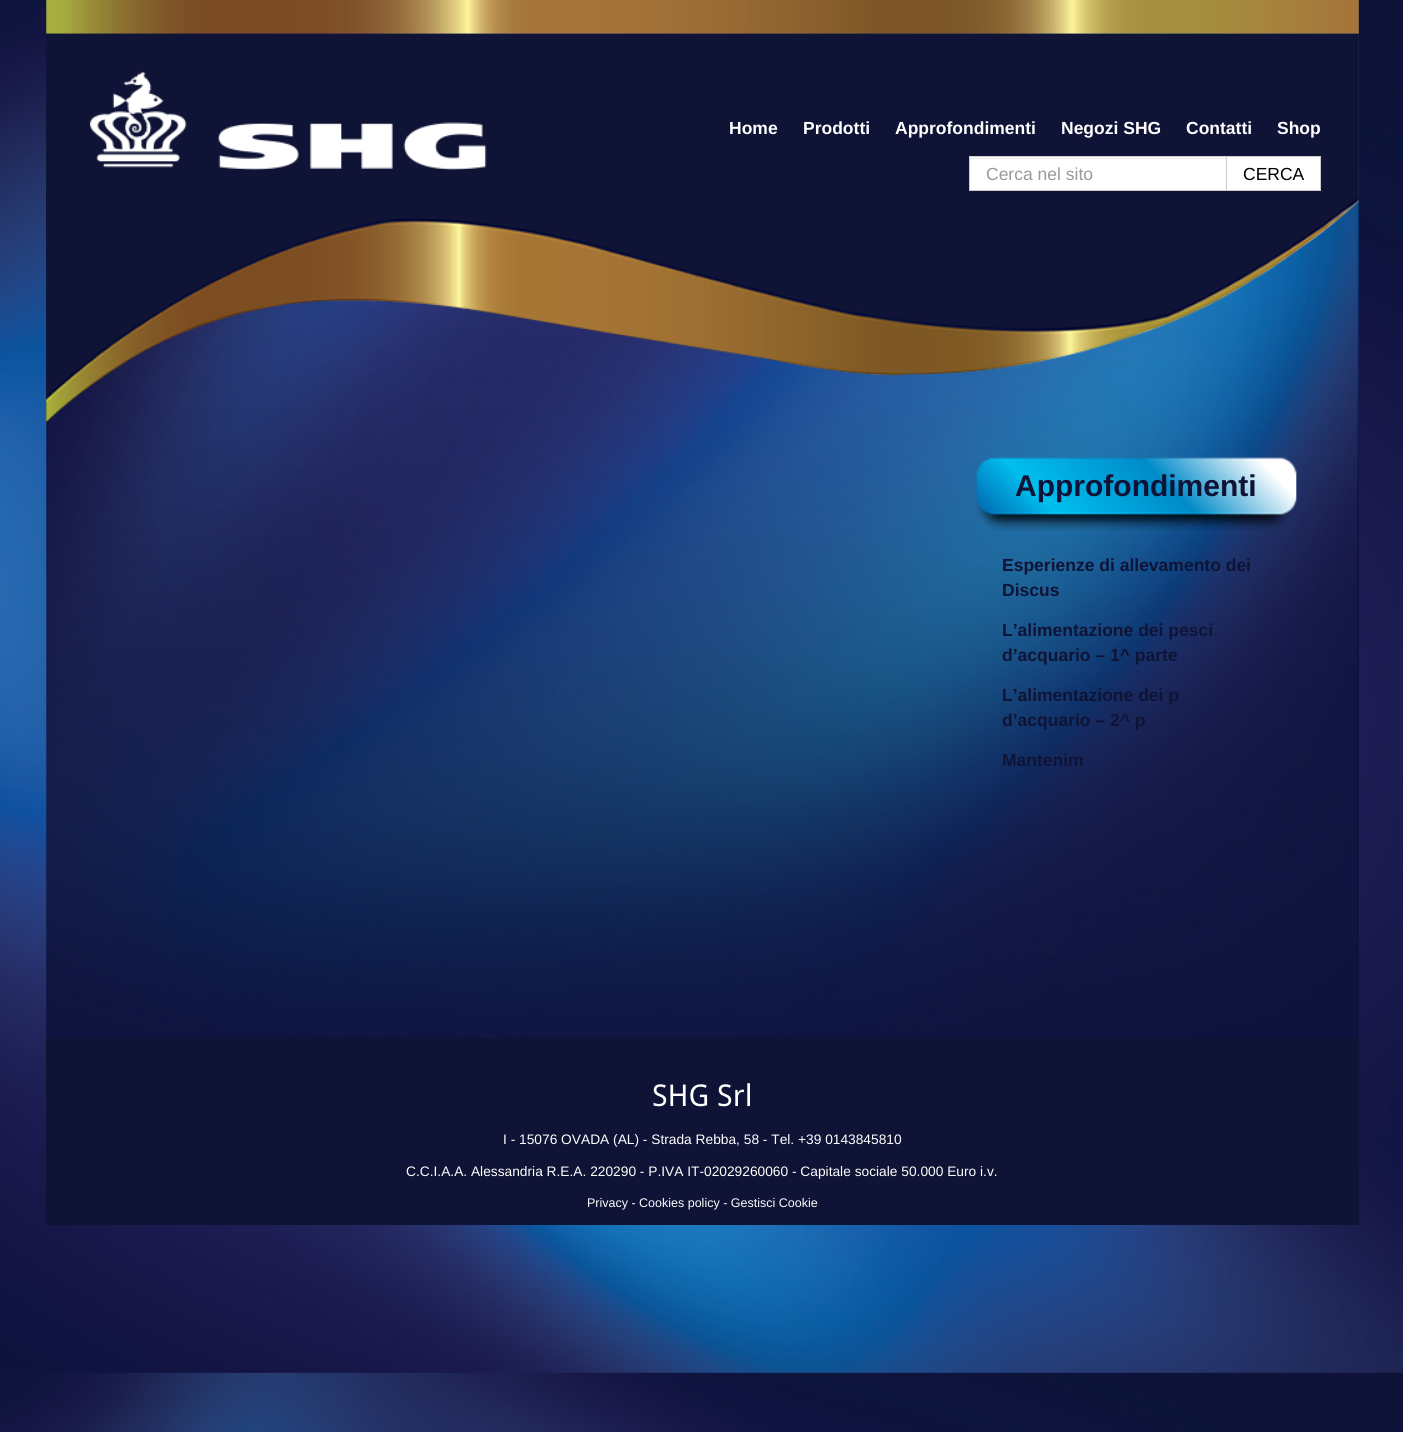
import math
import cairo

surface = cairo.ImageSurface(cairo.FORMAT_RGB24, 1403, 1432)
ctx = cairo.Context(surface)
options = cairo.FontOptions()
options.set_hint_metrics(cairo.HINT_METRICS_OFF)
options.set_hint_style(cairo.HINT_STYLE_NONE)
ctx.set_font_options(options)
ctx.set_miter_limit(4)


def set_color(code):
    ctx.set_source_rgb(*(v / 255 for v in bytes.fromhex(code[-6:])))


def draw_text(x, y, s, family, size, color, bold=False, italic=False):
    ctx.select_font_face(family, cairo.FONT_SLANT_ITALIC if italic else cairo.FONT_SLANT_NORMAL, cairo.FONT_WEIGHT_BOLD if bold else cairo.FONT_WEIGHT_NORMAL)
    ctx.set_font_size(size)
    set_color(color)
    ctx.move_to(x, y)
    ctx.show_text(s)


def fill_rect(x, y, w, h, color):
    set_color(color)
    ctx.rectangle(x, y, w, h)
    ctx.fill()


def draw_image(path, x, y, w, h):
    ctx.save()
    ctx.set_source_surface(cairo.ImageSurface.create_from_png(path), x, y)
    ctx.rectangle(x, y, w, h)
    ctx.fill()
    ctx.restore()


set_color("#ffffff")
ctx.paint()
draw_image("assets/img1.png", 0, 0, 1403, 1432)
draw_image("assets/img2.png", 46, 0, 1313, 1038)
draw_image("assets/img3.png", 46, 0, 1313, 34)
draw_image("assets/img4.png", 46, 33, 1313, 390)
draw_image("assets/img5.png", 90, 71, 397, 99)
draw_text(729, 134, "Home", "Liberation Sans", 17.5, "#ffffff", bold=True)
draw_text(803, 134, "Prodotti", "Liberation Sans", 17.5, "#ffffff", bold=True)
draw_text(895, 134, "Approfondimenti", "Liberation Sans", 17.5, "#ffffff", bold=True)
draw_text(1061, 134, "Negozi SHG", "Liberation Sans", 17.5, "#ffffff", bold=True)
draw_text(1186, 134, "Contatti", "Liberation Sans", 17.5, "#ffffff", bold=True)
draw_text(1277, 134, "Shop", "Liberation Sans", 17.5, "#ffffff", bold=True)
fill_rect(970, 157, 256, 33, "#ffffff")
fill_rect(970, 158, 256, 1, "#ececec")
ctx.rectangle(969.5, 156.5, 258, 34)
set_color("#cccccc")
ctx.set_line_width(1)
ctx.stroke()
draw_text(986, 180, "Cerca nel sito", "Liberation Sans", 17.5, "#999999")
set_color("#ffffff")
ctx.rectangle(1226.5, 156.5, 94, 34)
ctx.fill_preserve()
set_color("#cccccc")
ctx.stroke()
draw_text(1243, 180, "CERCA", "Liberation Sans", 17.5, "#000000")
draw_image("assets/img6.png", 975, 457, 322, 74)
draw_text(1015, 496, "Approfondimenti", "Liberation Sans", 30, "#0f1335", bold=True)
draw_text(1002, 571, "Esperienze di allevamento dei", "Liberation Sans", 17.5, "#0f1335", bold=True)
draw_text(1002, 596, "Discus", "Liberation Sans", 17.5, "#0f1335", bold=True)
draw_text(1002, 636, "L’alimentazione dei pesci", "Liberation Sans", 17.5, "#0f1335", bold=True)
draw_text(1002, 661, "d’acquario – 1^ parte", "Liberation Sans", 17.5, "#0f1335", bold=True)
draw_text(1002, 701, "L’alimentazione dei p", "Liberation Sans", 17.5, "#0f1335", bold=True)
draw_text(1002, 726, "d’acquario – 2^ p", "Liberation Sans", 17.5, "#0f1335", bold=True)
draw_text(1002, 766, "Mantenim", "Liberation Sans", 17.5, "#0f1335", bold=True)
fill_rect(46, 1038, 1313, 187, "#0f1335")
draw_text(652, 1106, "SHG Srl", "Droid Sans", 30, "#ffffff")
draw_text(503, 1144, "I - 15076 OVADA (AL) - Strada Rebba, 58 - Tel. +39 0143845810", "Liberation Sans", 13.75, "#ffffff")
draw_text(406, 1176, "C.C.I.A.A. Alessandria R.E.A. 220290 - P.IVA IT-02029260060 - Capitale sociale 50.000 Euro i.v.", "Liberation Sans", 13.75, "#ffffff")
draw_text(587, 1207, "Privacy - Cookies policy - Gestisci Cookie", "Liberation Sans", 12.5, "#ffffff")
surface.write_to_png("output.png")
